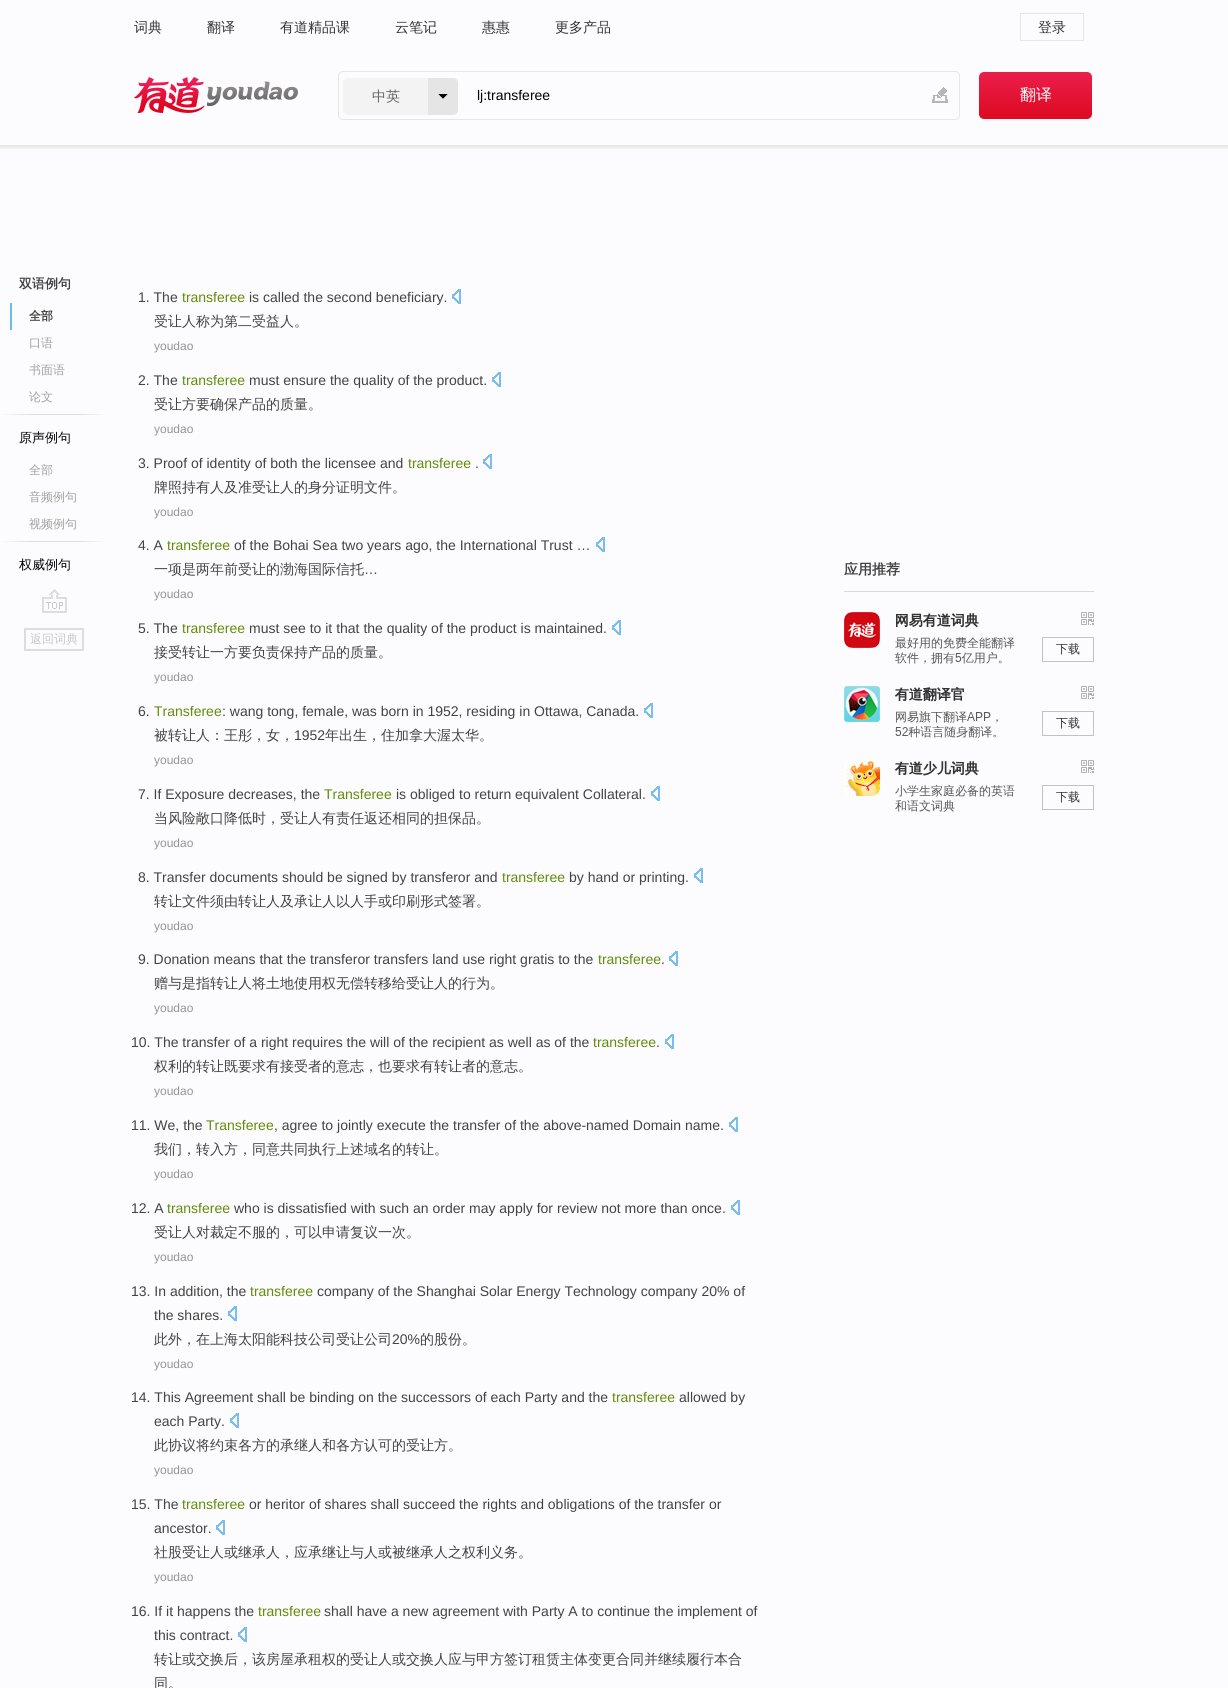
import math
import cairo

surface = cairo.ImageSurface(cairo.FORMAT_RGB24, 1228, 1688)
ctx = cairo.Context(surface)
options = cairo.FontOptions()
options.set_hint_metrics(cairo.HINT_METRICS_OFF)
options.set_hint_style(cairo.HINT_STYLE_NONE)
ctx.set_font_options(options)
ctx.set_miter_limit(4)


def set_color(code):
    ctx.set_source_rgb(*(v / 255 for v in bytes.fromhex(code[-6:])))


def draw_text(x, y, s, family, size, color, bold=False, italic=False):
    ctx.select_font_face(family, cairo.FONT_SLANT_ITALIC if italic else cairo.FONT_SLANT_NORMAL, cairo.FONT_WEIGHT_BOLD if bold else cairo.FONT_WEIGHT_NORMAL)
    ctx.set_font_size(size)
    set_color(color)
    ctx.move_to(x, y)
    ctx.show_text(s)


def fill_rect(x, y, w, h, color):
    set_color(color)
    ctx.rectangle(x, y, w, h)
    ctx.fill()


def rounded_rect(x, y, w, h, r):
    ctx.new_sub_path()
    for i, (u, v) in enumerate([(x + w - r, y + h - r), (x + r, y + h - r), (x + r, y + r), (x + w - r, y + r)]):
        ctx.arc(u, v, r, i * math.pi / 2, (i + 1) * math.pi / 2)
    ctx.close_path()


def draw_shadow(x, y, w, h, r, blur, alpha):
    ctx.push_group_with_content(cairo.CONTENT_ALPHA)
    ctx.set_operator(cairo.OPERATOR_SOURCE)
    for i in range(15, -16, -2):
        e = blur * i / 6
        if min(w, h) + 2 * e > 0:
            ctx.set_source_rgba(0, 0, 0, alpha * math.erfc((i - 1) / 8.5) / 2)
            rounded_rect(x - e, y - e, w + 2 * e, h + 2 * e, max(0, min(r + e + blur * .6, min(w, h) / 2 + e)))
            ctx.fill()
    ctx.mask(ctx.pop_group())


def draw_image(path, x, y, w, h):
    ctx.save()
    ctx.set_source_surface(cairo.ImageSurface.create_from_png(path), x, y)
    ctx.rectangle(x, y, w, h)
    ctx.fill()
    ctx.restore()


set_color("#fcfcfe")
ctx.paint()
ctx.save()
ctx.rectangle(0, 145, 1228, 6)
ctx.clip()
set_color("#e6e6e6")
draw_shadow(-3, -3, 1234, 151, 0, 1.5, 1)
ctx.restore()
draw_text(134, 32, "词典", "WenQuanYi Zen Hei Medium", 14, "#333333")
draw_text(207, 32, "翻译", "WenQuanYi Zen Hei Medium", 14, "#333333")
draw_text(280, 32, "有道精品课", "WenQuanYi Zen Hei Medium", 14, "#333333")
draw_text(395, 32, "云笔记", "WenQuanYi Zen Hei Medium", 14, "#333333")
draw_text(482, 32, "惠惠", "WenQuanYi Zen Hei Medium", 14, "#333333")
draw_text(555, 32, "更多产品", "WenQuanYi Zen Hei Medium", 14, "#333333")
ctx.rectangle(1020.5, 13.5, 63, 27)
set_color("#e6e6e6")
ctx.set_line_width(1)
ctx.stroke()
draw_text(1038, 32, "登录", "WenQuanYi Zen Hei Medium", 14, "#333333")
draw_image("assets/img1.png", 134, 77, 164, 36)
rounded_rect(338.5, 71.5, 621, 48, 4.5)
set_color("#e6e6e6")
ctx.stroke()
set_color("#f3f3f3")
ctx.new_path()
ctx.move_to(348, 78)
ctx.line_to(428, 78)
ctx.line_to(428, 115)
ctx.line_to(348, 115)
ctx.curve_to(345, 115, 343, 113, 343, 110)
ctx.line_to(343, 83)
ctx.curve_to(343, 80, 345, 78, 348, 78)
ctx.close_path()
ctx.fill()
draw_text(372, 101, "中英", "WenQuanYi Zen Hei Medium", 14, "#656565")
set_color("#e5e5e5")
ctx.new_path()
ctx.move_to(428, 78)
ctx.line_to(453, 78)
ctx.curve_to(456, 78, 458, 80, 458, 83)
ctx.line_to(458, 110)
ctx.curve_to(458, 113, 456, 115, 453, 115)
ctx.line_to(428, 115)
ctx.close_path()
ctx.fill()
set_color("#000000")
ctx.new_path()
ctx.move_to(438, 94)
ctx.line_to(448, 94)
ctx.line_to(443, 99)
ctx.close_path()
ctx.fill()
set_color("#e5e5e5")
ctx.new_path()
ctx.move_to(448, 94)
ctx.line_to(448, 104)
ctx.line_to(443, 99)
ctx.close_path()
ctx.move_to(438, 104)
ctx.line_to(438, 94)
ctx.line_to(443, 99)
ctx.close_path()
ctx.fill()
draw_text(477, 100, "lj:transferee", "Liberation Sans", 14, "#000000")
draw_image("assets/img2.png", 932, 87, 16, 16)
gradient = cairo.LinearGradient(1036, 72, 1036, 119)
gradient.add_color_stop_rgba(0, 0.918, 0.118, 0.298, 1)
gradient.add_color_stop_rgba(1, 0.867, 0.039, 0.125, 1)
ctx.set_source(gradient)
rounded_rect(979, 72, 113, 47, 5)
ctx.fill()
draw_text(1020, 100, "翻译", "WenQuanYi Zen Hei Medium", 16, "#ffffff")
draw_text(19, 288, "双语例句", "WenQuanYi Zen Hei", 13, "#434343", bold=True)
fill_rect(10, 303, 2, 27, "#63bfeb")
draw_text(29, 320, "全部", "WenQuanYi Zen Hei", 12, "#434343", bold=True)
draw_text(29, 347, "口语", "WenQuanYi Zen Hei Medium", 12, "#a0a0a0")
draw_text(29, 374, "书面语", "WenQuanYi Zen Hei Medium", 12, "#a0a0a0")
draw_text(29, 401, "论文", "WenQuanYi Zen Hei Medium", 12, "#a0a0a0")
draw_image("assets/img3.png", 3, 414, 101, 1)
draw_text(19, 442, "原声例句", "WenQuanYi Zen Hei Medium", 13, "#000000")
draw_text(29, 474, "全部", "WenQuanYi Zen Hei Medium", 12, "#a0a0a0")
draw_text(29, 501, "音频例句", "WenQuanYi Zen Hei Medium", 12, "#a0a0a0")
draw_text(29, 528, "视频例句", "WenQuanYi Zen Hei Medium", 12, "#a0a0a0")
draw_image("assets/img3.png", 3, 541, 101, 1)
draw_text(19, 569, "权威例句", "WenQuanYi Zen Hei Medium", 13, "#000000")
draw_image("assets/img4.png", 42, 589, 25, 24)
ctx.rectangle(25, 629, 58, 21)
set_color("#dddddd")
ctx.set_line_width(2)
ctx.stroke()
draw_text(30, 643, "返回词典", "WenQuanYi Zen Hei Medium", 12, "#c9c9c9")
draw_text(138, 302, "1. The", "Liberation Sans", 14, "#434343")
draw_text(182, 302, "transferee", "Liberation Sans", 14, "#638c0b")
draw_text(249, 302, "is called the second beneficiary.", "Liberation Sans", 14, "#434343")
draw_image("assets/img5.png", 452, 289, 9, 15)
draw_text(154, 326, "受让人称为第二受益人。", "WenQuanYi Zen Hei Medium", 14, "#434343")
draw_text(154, 350, "youdao", "Liberation Sans", 12, "#959595")
draw_text(138, 385, "2. The", "Liberation Sans", 14, "#434343")
draw_text(182, 385, "transferee", "Liberation Sans", 14, "#638c0b")
draw_text(249, 385, "must ensure the quality of the product.", "Liberation Sans", 14, "#434343")
draw_image("assets/img5.png", 492, 372, 9, 15)
draw_text(154, 409, "受让方要确保产品的质量。", "WenQuanYi Zen Hei Medium", 14, "#434343")
draw_text(154, 433, "youdao", "Liberation Sans", 12, "#959595")
draw_text(138, 468, "3. Proof of identity of both the licensee and", "Liberation Sans", 14, "#434343")
draw_text(408, 468, "transferee", "Liberation Sans", 14, "#638c0b")
draw_text(475, 468, ".", "Liberation Sans", 14, "#434343")
draw_image("assets/img5.png", 483, 454, 9, 15)
draw_text(154, 492, "牌照持有人及准受让人的身分证明文件。", "WenQuanYi Zen Hei Medium", 14, "#434343")
draw_text(154, 516, "youdao", "Liberation Sans", 12, "#959595")
draw_text(138, 550, "4. A", "Liberation Sans", 14, "#434343")
draw_text(167, 550, "transferee", "Liberation Sans", 14, "#638c0b")
draw_text(234, 550, "of the Bohai Sea two years ago, the International Trust …", "Liberation Sans", 14, "#434343")
draw_image("assets/img5.png", 596, 537, 9, 15)
draw_text(154, 574, "一项是两年前受让的渤海国际信托", "WenQuanYi Zen Hei Medium", 14, "#434343")
draw_text(364, 574, "…", "Liberation Sans", 14, "#434343")
draw_text(154, 598, "youdao", "Liberation Sans", 12, "#959595")
draw_text(138, 633, "5. The", "Liberation Sans", 14, "#434343")
draw_text(182, 633, "transferee", "Liberation Sans", 14, "#638c0b")
draw_text(249, 633, "must see to it that the quality of the product is maintained.", "Liberation Sans", 14, "#434343")
draw_image("assets/img5.png", 612, 620, 9, 15)
draw_text(154, 657, "接受转让一方要负责保持产品的质量。", "WenQuanYi Zen Hei Medium", 14, "#434343")
draw_text(154, 681, "youdao", "Liberation Sans", 12, "#959595")
draw_text(138, 716, "6.", "Liberation Sans", 14, "#434343")
draw_text(154, 716, "Transferee", "Liberation Sans", 14, "#638c0b")
draw_text(222, 716, ": wang tong, female, was born in 1952, residing in Ottawa, Canada.", "Liberation Sans", 14, "#434343")
draw_image("assets/img5.png", 644, 703, 9, 15)
draw_text(154, 740, "被转让人：王彤，女，", "WenQuanYi Zen Hei Medium", 14, "#434343")
draw_text(294, 740, "1952", "Liberation Sans", 14, "#434343")
draw_text(325, 740, "年出生，住加拿大渥太华。", "WenQuanYi Zen Hei Medium", 14, "#434343")
draw_text(154, 764, "youdao", "Liberation Sans", 12, "#959595")
draw_text(138, 799, "7. If Exposure decreases, the", "Liberation Sans", 14, "#434343")
draw_text(324, 799, "Transferee", "Liberation Sans", 14, "#638c0b")
draw_text(396, 799, "is obliged to return equivalent Collateral.", "Liberation Sans", 14, "#434343")
draw_image("assets/img5.png", 651, 786, 9, 15)
draw_text(154, 823, "当风险敞口降低时，受让人有责任返还相同的担保品。", "WenQuanYi Zen Hei Medium", 14, "#434343")
draw_text(154, 847, "youdao", "Liberation Sans", 12, "#959595")
draw_text(138, 882, "8. Transfer documents should be signed by transferor and", "Liberation Sans", 14, "#434343")
draw_text(502, 882, "transferee", "Liberation Sans", 14, "#638c0b")
draw_text(569, 882, "by hand or printing.", "Liberation Sans", 14, "#434343")
draw_image("assets/img5.png", 694, 868, 9, 15)
draw_text(154, 906, "转让文件须由转让人及承让人以人手或印刷形式签署。", "WenQuanYi Zen Hei Medium", 14, "#434343")
draw_text(154, 930, "youdao", "Liberation Sans", 12, "#959595")
draw_text(138, 964, "9. Donation means that the transferor transfers land use right gratis to the", "Liberation Sans", 14, "#434343")
draw_text(598, 964, "transferee", "Liberation Sans", 14, "#638c0b")
draw_text(661, 964, ".", "Liberation Sans", 14, "#434343")
draw_image("assets/img5.png", 669, 951, 9, 15)
draw_text(154, 988, "赠与是指转让人将土地使用权无偿转移给受让人的行为。", "WenQuanYi Zen Hei Medium", 14, "#434343")
draw_text(154, 1012, "youdao", "Liberation Sans", 12, "#959595")
draw_text(131, 1047, "10. The transfer of a right requires the will of the recipient as well as of the", "Liberation Sans", 14, "#434343")
draw_text(593, 1047, "transferee", "Liberation Sans", 14, "#638c0b")
draw_text(656, 1047, ".", "Liberation Sans", 14, "#434343")
draw_image("assets/img5.png", 665, 1034, 9, 15)
draw_text(154, 1071, "权利的转让既要求有接受者的意志，也要求有转让者的意志。", "WenQuanYi Zen Hei Medium", 14, "#434343")
draw_text(154, 1095, "youdao", "Liberation Sans", 12, "#959595")
draw_text(131, 1130, "11. We, the", "Liberation Sans", 14, "#434343")
draw_text(206, 1130, "Transferee", "Liberation Sans", 14, "#638c0b")
draw_text(274, 1130, ", agree to jointly execute the transfer of the above-named Domain name.", "Liberation Sans", 14, "#434343")
draw_image("assets/img5.png", 729, 1117, 9, 15)
draw_text(154, 1154, "我们，转入方，同意共同执行上述域名的转让。", "WenQuanYi Zen Hei Medium", 14, "#434343")
draw_text(154, 1178, "youdao", "Liberation Sans", 12, "#959595")
draw_text(131, 1213, "12. A", "Liberation Sans", 14, "#434343")
draw_text(167, 1213, "transferee", "Liberation Sans", 14, "#638c0b")
draw_text(234, 1213, "who is dissatisfied with such an order may apply for review not more than once.", "Liberation Sans", 14, "#434343")
draw_image("assets/img5.png", 731, 1200, 9, 15)
draw_text(154, 1237, "受让人对裁定不服的，可以申请复议一次。", "WenQuanYi Zen Hei Medium", 14, "#434343")
draw_text(154, 1261, "youdao", "Liberation Sans", 12, "#959595")
draw_text(131, 1296, "13. In addition, the", "Liberation Sans", 14, "#434343")
draw_text(250, 1296, "transferee", "Liberation Sans", 14, "#638c0b")
draw_text(317, 1296, "company of the Shanghai Solar Energy Technology company 20% of", "Liberation Sans", 14, "#434343")
draw_text(154, 1320, "the shares.", "Liberation Sans", 14, "#434343")
draw_image("assets/img5.png", 228, 1306, 9, 15)
draw_text(154, 1344, "此外，在上海太阳能科技公司受让公司", "WenQuanYi Zen Hei Medium", 14, "#434343")
draw_text(392, 1344, "20%", "Liberation Sans", 14, "#434343")
draw_text(420, 1344, "的股份。", "WenQuanYi Zen Hei Medium", 14, "#434343")
draw_text(154, 1368, "youdao", "Liberation Sans", 12, "#959595")
draw_text(131, 1402, "14. This Agreement shall be binding on the successors of each Party and the", "Liberation Sans", 14, "#434343")
draw_text(612, 1402, "transferee", "Liberation Sans", 14, "#638c0b")
draw_text(679, 1402, "allowed by", "Liberation Sans", 14, "#434343")
draw_text(154, 1426, "each Party.", "Liberation Sans", 14, "#434343")
draw_image("assets/img5.png", 230, 1413, 9, 15)
draw_text(154, 1450, "此协议将约束各方的承继人和各方认可的受让方。", "WenQuanYi Zen Hei Medium", 14, "#434343")
draw_text(154, 1474, "youdao", "Liberation Sans", 12, "#959595")
draw_text(131, 1509, "15. The", "Liberation Sans", 14, "#434343")
draw_text(182, 1509, "transferee", "Liberation Sans", 14, "#638c0b")
draw_text(249, 1509, "or heritor of shares shall succeed the rights and obligations of the transfer or", "Liberation Sans", 14, "#434343")
draw_text(154, 1533, "ancestor.", "Liberation Sans", 14, "#434343")
draw_image("assets/img5.png", 216, 1520, 9, 15)
draw_text(154, 1557, "社股受让人或继承人，应承继让与人或被继承人之权利义务。", "WenQuanYi Zen Hei Medium", 14, "#434343")
draw_text(154, 1581, "youdao", "Liberation Sans", 12, "#959595")
draw_text(131, 1616, "16. If it happens the", "Liberation Sans", 14, "#434343")
draw_text(258, 1616, "transferee", "Liberation Sans", 14, "#638c0b")
draw_text(324, 1616, "shall have a new agreement with Party A to continue the implement of", "Liberation Sans", 14, "#434343")
draw_text(154, 1640, "this contract.", "Liberation Sans", 14, "#434343")
draw_image("assets/img5.png", 238, 1627, 9, 15)
draw_text(154, 1664, "转让或交换后，该房屋承租权的受让人或交换人应与甲方签订租赁主体变更合同并继续履行本合", "WenQuanYi Zen Hei Medium", 14, "#434343")
draw_text(154, 1688, "同。", "WenQuanYi Zen Hei Medium", 14, "#434343")
fill_rect(844, 591, 250, 1, "#d9d9d9")
draw_text(844, 574, "应用推荐", "WenQuanYi Zen Hei", 14, "#434343", bold=True)
draw_image("assets/img6.png", 844, 612, 250, 200)
surface.write_to_png("output.png")
